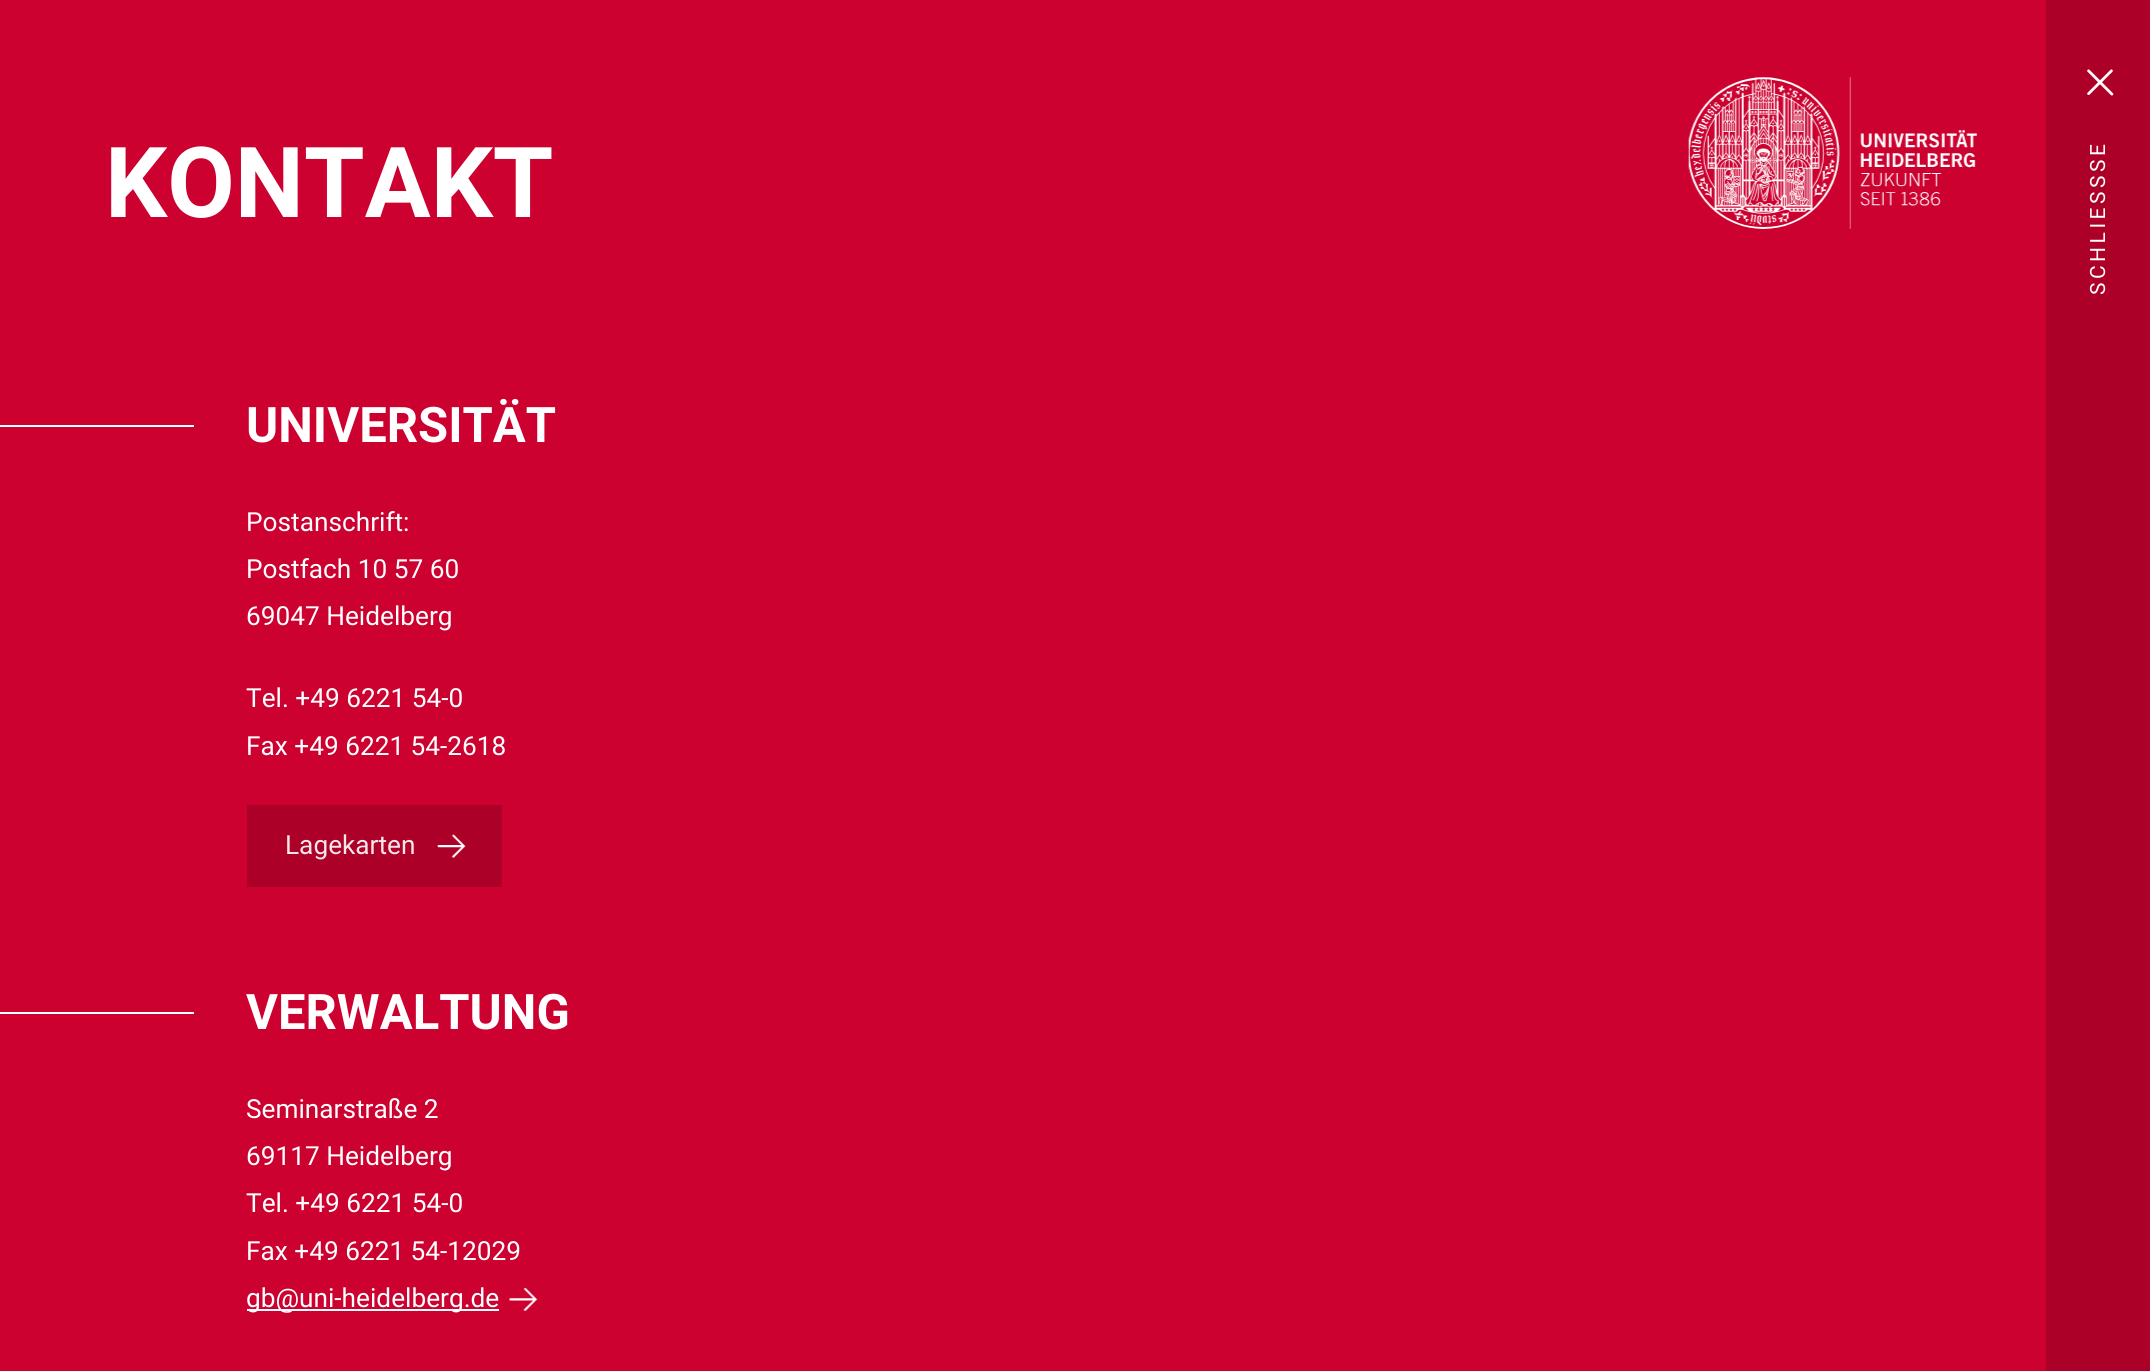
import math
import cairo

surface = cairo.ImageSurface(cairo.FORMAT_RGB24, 2150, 1371)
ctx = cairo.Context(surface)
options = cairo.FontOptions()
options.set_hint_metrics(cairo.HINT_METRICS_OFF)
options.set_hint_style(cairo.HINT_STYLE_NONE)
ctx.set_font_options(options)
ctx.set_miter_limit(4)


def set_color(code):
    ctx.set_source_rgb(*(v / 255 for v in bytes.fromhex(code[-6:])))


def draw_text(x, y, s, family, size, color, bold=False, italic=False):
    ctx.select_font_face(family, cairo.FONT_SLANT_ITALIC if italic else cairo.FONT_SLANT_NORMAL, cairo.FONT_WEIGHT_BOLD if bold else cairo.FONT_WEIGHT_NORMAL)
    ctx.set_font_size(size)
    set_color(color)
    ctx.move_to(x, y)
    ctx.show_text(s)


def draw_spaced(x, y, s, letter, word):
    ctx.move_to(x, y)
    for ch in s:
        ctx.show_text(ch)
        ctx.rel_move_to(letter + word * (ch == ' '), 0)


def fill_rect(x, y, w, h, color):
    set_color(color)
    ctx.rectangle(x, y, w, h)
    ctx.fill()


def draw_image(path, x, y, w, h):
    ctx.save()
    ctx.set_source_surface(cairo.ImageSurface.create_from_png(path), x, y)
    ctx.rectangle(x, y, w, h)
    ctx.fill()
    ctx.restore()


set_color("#cc0130")
ctx.paint()
draw_text(105, 217, "KONTAKT", "Roboto", 98, "#ffffff", bold=True)
fill_rect(0, 425, 194, 2, "#ffffff")
draw_text(246, 442, "UNIVERSITÄT", "Roboto", 49, "#ffffff", bold=True)
draw_text(246, 531, "Postanschrift:", "Roboto", 26.25, "#ffffff")
draw_text(246, 578, "Postfach 10 57 60", "Roboto", 26.25, "#ffffff")
draw_text(246, 625, "69047 Heidelberg", "Roboto", 26.25, "#ffffff")
draw_text(246, 707, "Tel. +49 6221 54-0", "Roboto", 26.25, "#ffffff")
draw_text(246, 755, "Fax +49 6221 54-2618", "Roboto", 26.25, "#ffffff")
fill_rect(247, 805, 255, 82, "#ad0028")
draw_text(285, 854, "Lagekarten", "Roboto", 26.25, "#f7e6ea")
draw_image("assets/img1.png", 437, 834, 29, 24)
fill_rect(0, 1012, 194, 2, "#ffffff")
draw_text(246, 1029, "VERWALTUNG", "Roboto", 49, "#ffffff", bold=True)
draw_text(246, 1118, "Seminarstraße 2", "Roboto", 26.25, "#ffffff")
draw_text(246, 1165, "69117 Heidelberg", "Roboto", 26.25, "#ffffff")
draw_text(246, 1212, "Tel. +49 6221 54-0", "Roboto", 26.25, "#ffffff")
draw_text(246, 1260, "Fax +49 6221 54-12029", "Roboto", 26.25, "#ffffff")
fill_rect(247, 1309, 252, 2, "#ffffff")
draw_text(246, 1307, "gb@uni-heidelberg.de", "Roboto", 26.25, "#ffffff")
draw_image("assets/img2.png", 509, 1287, 29, 24)
draw_image("assets/img3.png", 1688, 77, 290, 152)
fill_rect(2046, 0, 104, 1371, "#ad0028")
draw_image("assets/img4.png", 2087, 69, 27, 27)
ctx.set_font_size(21)
set_color("#ffffff")
ctx.save()
ctx.translate(2105, 172)
ctx.rotate(-90 * math.pi / 180)
draw_spaced(0, 0, "SE", 3.5, 0)
ctx.restore()
ctx.save()
ctx.translate(2105, 204)
ctx.rotate(-90 * math.pi / 180)
draw_spaced(0, 0, "SS", 3.5, 0)
ctx.restore()
ctx.save()
ctx.translate(2105, 295)
ctx.rotate(-90 * math.pi / 180)
draw_spaced(0, 0, "SCHLIE", 3.5, 0)
ctx.restore()
surface.write_to_png("output.png")
